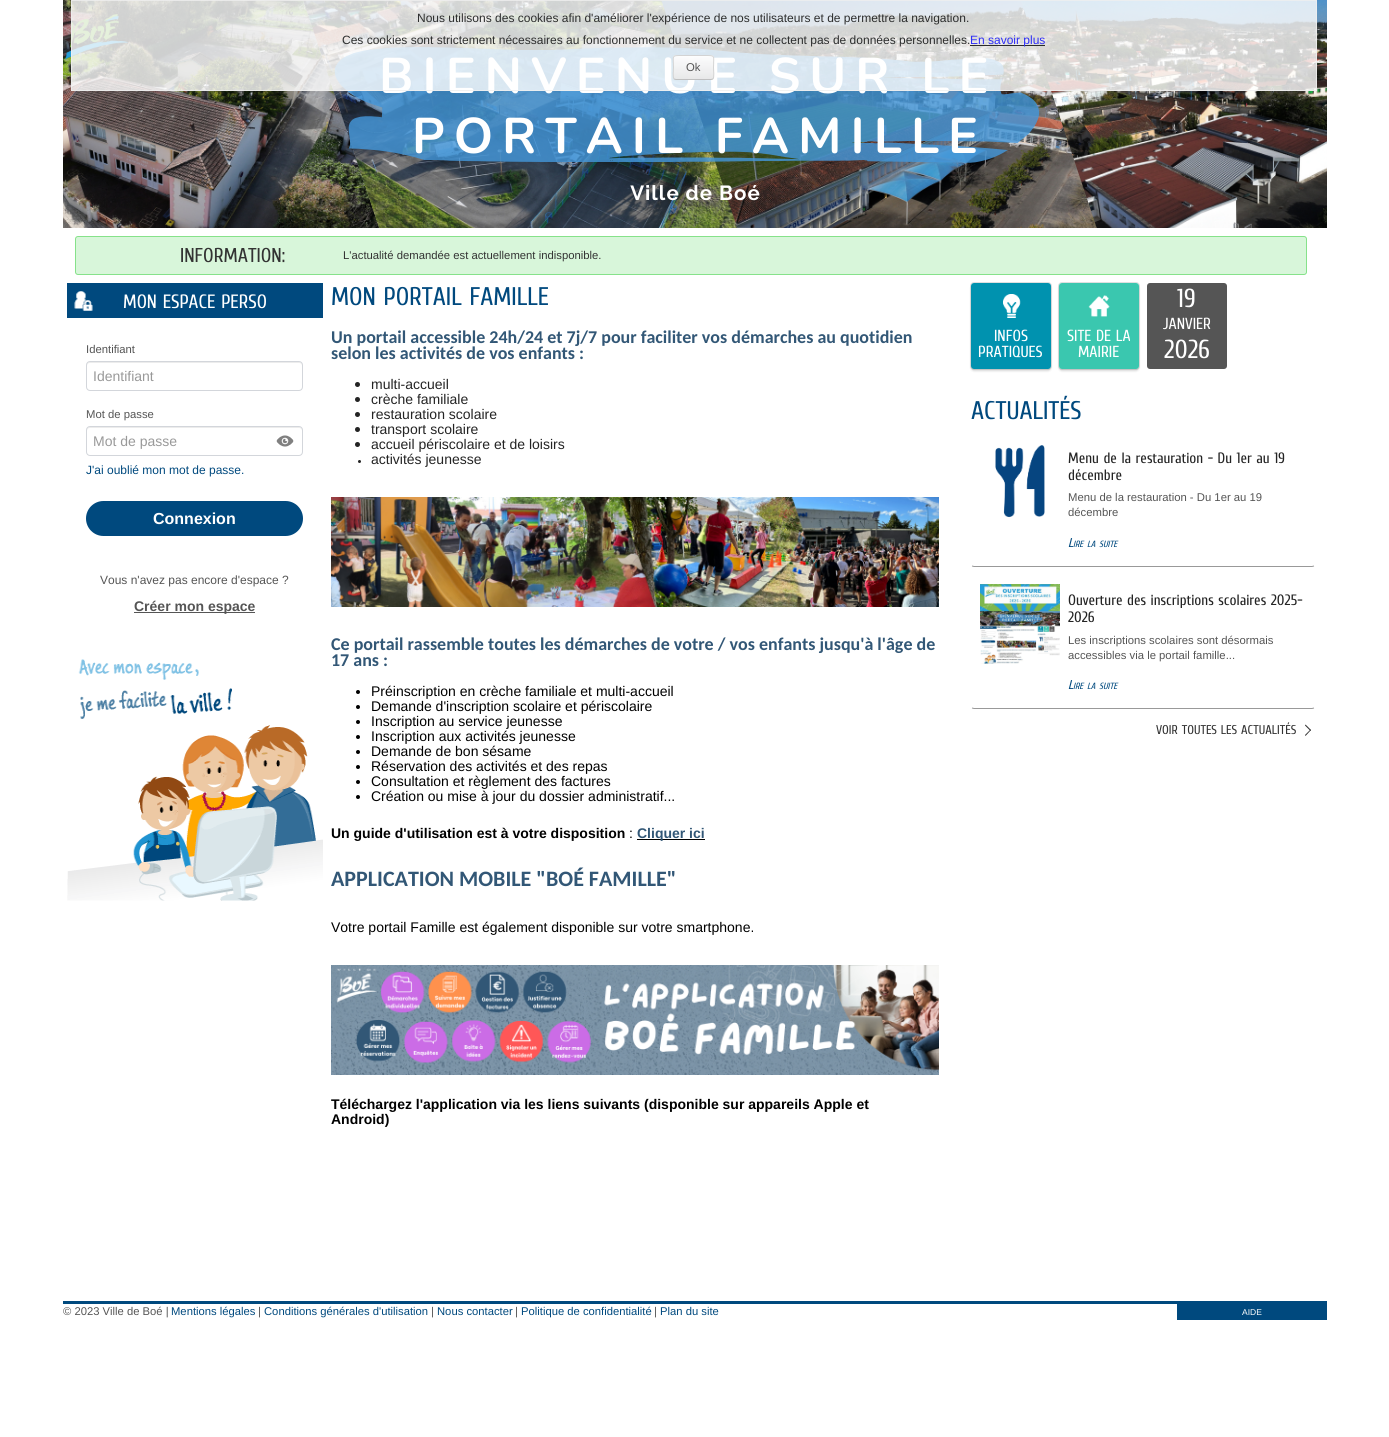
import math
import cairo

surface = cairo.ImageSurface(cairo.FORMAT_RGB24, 1389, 1437)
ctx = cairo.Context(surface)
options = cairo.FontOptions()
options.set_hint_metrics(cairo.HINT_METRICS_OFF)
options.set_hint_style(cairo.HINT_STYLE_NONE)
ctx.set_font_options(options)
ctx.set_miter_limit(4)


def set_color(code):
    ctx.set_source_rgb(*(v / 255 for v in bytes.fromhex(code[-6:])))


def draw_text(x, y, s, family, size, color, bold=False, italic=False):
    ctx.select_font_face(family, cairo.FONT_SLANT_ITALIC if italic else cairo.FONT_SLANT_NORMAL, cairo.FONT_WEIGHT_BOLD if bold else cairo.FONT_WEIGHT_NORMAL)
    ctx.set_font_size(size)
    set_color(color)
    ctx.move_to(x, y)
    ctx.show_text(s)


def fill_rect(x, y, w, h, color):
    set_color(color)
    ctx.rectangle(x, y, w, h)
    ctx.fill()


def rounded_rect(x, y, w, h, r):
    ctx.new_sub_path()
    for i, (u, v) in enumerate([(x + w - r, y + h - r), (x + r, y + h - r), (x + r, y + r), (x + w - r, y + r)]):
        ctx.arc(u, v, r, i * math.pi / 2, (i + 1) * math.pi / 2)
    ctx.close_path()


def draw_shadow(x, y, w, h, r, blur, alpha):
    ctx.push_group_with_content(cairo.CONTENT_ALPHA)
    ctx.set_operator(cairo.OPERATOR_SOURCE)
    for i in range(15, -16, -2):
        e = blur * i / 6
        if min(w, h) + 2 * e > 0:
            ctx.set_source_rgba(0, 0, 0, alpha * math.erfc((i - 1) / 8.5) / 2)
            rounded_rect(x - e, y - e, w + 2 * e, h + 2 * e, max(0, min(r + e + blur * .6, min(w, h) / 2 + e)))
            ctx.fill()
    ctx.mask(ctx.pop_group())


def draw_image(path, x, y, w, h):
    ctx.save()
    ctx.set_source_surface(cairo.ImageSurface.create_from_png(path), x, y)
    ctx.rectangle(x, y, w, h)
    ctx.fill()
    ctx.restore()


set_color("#ffffff")
ctx.paint()
draw_image("assets/img1.png", 63, 0, 1264, 228)
ctx.set_source_rgba(1, 1, 1, 0.8)
ctx.rectangle(71, 0, 1246, 91)
ctx.fill()
ctx.rectangle(71.5, 0.5, 1245, 90)
ctx.set_source_rgba(0.933, 0.933, 0.933, 0.8)
ctx.set_line_width(1)
ctx.stroke()
draw_text(417, 22, "Nous utilisons des cookies afin d'améliorer l'expérience de nos utilisateurs et de permettre la navigation.", "Liberation Sans", 12, "#2c2d2d")
draw_text(342, 44, "Ces cookies sont strictement nécessaires au fonctionnement du service et ne collectent pas de données personnelles.", "Liberation Sans", 12, "#2c2d2d")
ctx.set_source_rgba(0, 0, 0, 0.8)
ctx.rectangle(970, 45, 75, 1)
ctx.fill()
draw_text(970, 44, "En savoir plus", "Liberation Sans", 12, "#2d2df8")
ctx.set_source_rgba(0.961, 0.961, 0.961, 0.8)
rounded_rect(673, 55, 41, 25, 3)
ctx.fill()
ctx.save()
rounded_rect(673, 55, 41, 25, 3)
ctx.clip()
gradient = cairo.LinearGradient(694, 56, 694, 79)
gradient.add_color_stop_rgba(0, 1, 1, 1, 0.8)
gradient.add_color_stop_rgba(1, 0.902, 0.902, 0.902, 0.8)
ctx.set_source(gradient)
ctx.rectangle(673, 56, 41, 23)
ctx.fill()
ctx.restore()
set_color("#fcfdfd")
ctx.new_path()
ctx.move_to(676, 57)
ctx.line_to(712, 57)
ctx.curve_to(712.5, 57.5, 713, 58.5, 713, 60)
ctx.curve_to(713, 54.5, 710.5, 56, 705, 56)
ctx.line_to(682, 56)
ctx.curve_to(678, 56, 674, 54.5, 674, 59)
ctx.curve_to(674, 58, 675, 57, 676, 57)
ctx.close_path()
ctx.fill()
ctx.new_path()
ctx.move_to(713, 79)
ctx.line_to(711, 79.5)
ctx.line_to(676, 79.5)
ctx.line_to(674, 79)
ctx.set_source_rgba(0.702, 0.702, 0.702, 0.8)
ctx.stroke()
ctx.new_path()
ctx.move_to(674, 79)
ctx.curve_to(672.5, 77, 673.5, 70, 673.5, 67.5)
ctx.curve_to(673.5, 55.5, 671, 55.5, 682, 55.5)
ctx.line_to(705, 55.5)
ctx.curve_to(716, 55.5, 713.5, 55.5, 713.5, 67.5)
ctx.curve_to(713.5, 70, 714.5, 77, 713, 79)
ctx.set_source_rgba(0.8, 0.8, 0.8, 0.8)
ctx.stroke()
draw_text(686, 71, "Ok", "Liberation Sans", 11.3, "#555555")
set_color("#d8f6da")
rounded_rect(75.5, 236.5, 1231, 38, 2.5)
ctx.fill_preserve()
set_color("#86e28a")
ctx.stroke()
draw_text(180, 262, "INFORMATION:", "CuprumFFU", 20, "#333333")
draw_text(343, 259, "L'actualité demandée est actuellement indisponible.", "Liberation Sans", 11.3, "#333333")
fill_rect(67, 283, 256, 35, "#00497e")
draw_image("assets/img2.png", 74, 291, 19, 20)
draw_text(123, 308, "MON ESPACE PERSO", "CuprumFFU", 19.25, "#ffffff")
draw_text(86, 353, "Identifiant", "Liberation Sans", 11.3, "#555555")
set_color("#ececec")
ctx.new_path()
ctx.move_to(90, 363)
ctx.line_to(299, 363)
ctx.curve_to(301, 363, 302, 364, 302, 366)
ctx.line_to(302, 365)
ctx.curve_to(302, 363, 301, 362, 299, 362)
ctx.line_to(90, 362)
ctx.curve_to(88, 362, 87, 363, 87, 365)
ctx.line_to(87, 366)
ctx.curve_to(87, 364, 88, 363, 90, 363)
ctx.close_path()
ctx.fill()
rounded_rect(86.5, 361.5, 216, 29, 3.5)
set_color("#d3d6db")
ctx.stroke()
draw_text(93, 381, "Identifiant", "Liberation Sans", 14, "#999999")
draw_text(86, 418, "Mot de passe", "Liberation Sans", 11.3, "#555555")
set_color("#ececec")
ctx.new_path()
ctx.move_to(90, 428)
ctx.line_to(299, 428)
ctx.curve_to(301, 428, 302, 429, 302, 431)
ctx.line_to(302, 430)
ctx.curve_to(302, 428, 301, 427, 299, 427)
ctx.line_to(90, 427)
ctx.curve_to(88, 427, 87, 428, 87, 430)
ctx.line_to(87, 431)
ctx.curve_to(87, 429, 88, 428, 90, 428)
ctx.close_path()
ctx.fill()
rounded_rect(86.5, 426.5, 216, 29, 3.5)
set_color("#d3d6db")
ctx.stroke()
draw_text(93, 446, "Mot de passe", "Liberation Sans", 14, "#999999")
draw_image("assets/img3.png", 276, 435, 18, 12)
draw_text(86, 474, "J'ai oublié mon mot de passe.", "Liberation Sans", 12, "#00497e")
rounded_rect(86, 501, 217, 35, 17.5)
ctx.fill()
draw_text(153, 524, "Connexion", "Liberation Sans", 16, "#ffffff", bold=True)
draw_text(100, 584, "Vous n'avez pas encore d'espace ?", "Liberation Sans", 12, "#555555")
fill_rect(134, 612, 121, 1, "#555555")
draw_text(134, 611, "Créer mon espace", "Liberation Sans", 14, "#555555", bold=True)
draw_image("assets/img4.png", 67, 659, 256, 242)
draw_text(331, 305, "MON PORTAIL FAMILLE", "CuprumFFU", 25.5, "#00497e")
draw_text(331, 343, "Un portail accessible 24h/24 et 7j/7 pour faciliter vos démarches au quotidien", "Carlito", 18, "#325776", bold=True)
draw_text(331, 359, "selon les activités de vos enfants :", "Carlito", 18, "#325776", bold=True)
set_color("#242424")
ctx.new_path()
ctx.arc(357.5, 384.5, 2.5, 0, 2 * math.pi)
ctx.fill()
draw_text(371, 389, "multi-accueil", "Liberation Sans", 14, "#242424")
ctx.new_path()
ctx.arc(357.5, 399.5, 2.5, 0, 2 * math.pi)
ctx.fill()
draw_text(371, 404, "crèche familiale", "Liberation Sans", 14, "#242424")
ctx.new_path()
ctx.arc(357.5, 414.5, 2.5, 0, 2 * math.pi)
ctx.fill()
draw_text(371, 419, "restauration scolaire", "Liberation Sans", 14, "#242424")
ctx.new_path()
ctx.arc(357.5, 429.5, 2.5, 0, 2 * math.pi)
ctx.fill()
draw_text(371, 434, "transport scolaire", "Liberation Sans", 14, "#242424")
ctx.new_path()
ctx.arc(357.5, 444.5, 2.5, 0, 2 * math.pi)
ctx.fill()
draw_text(371, 449, "accueil périscolaire et de loisirs", "Liberation Sans", 14, "#242424")
ctx.new_path()
ctx.arc(359.5, 461.5, 1.5, 0, 2 * math.pi)
ctx.fill()
draw_text(371, 464, "activités jeunesse", "Liberation Sans", 14, "#242424")
draw_image("assets/img5.png", 331, 497, 608, 110)
draw_text(331, 650, "Ce portail rassemble toutes les démarches de votre / vos enfants jusqu'à l'âge de", "Carlito", 18, "#325776", bold=True)
draw_text(331, 666, "17 ans :", "Carlito", 18, "#325776", bold=True)
set_color("#000000")
ctx.new_path()
ctx.arc(358, 692, 2, 0, 2 * math.pi)
ctx.fill()
draw_text(371, 696, "Préinscription en crèche familiale et multi-accueil", "Liberation Sans", 14, "#000000")
ctx.new_path()
ctx.arc(358, 707, 2, 0, 2 * math.pi)
ctx.fill()
draw_text(371, 711, "Demande d'inscription scolaire et périscolaire", "Liberation Sans", 14, "#000000")
ctx.new_path()
ctx.arc(358, 722, 2, 0, 2 * math.pi)
ctx.fill()
draw_text(371, 726, "Inscription au service jeunesse", "Liberation Sans", 14, "#000000")
ctx.new_path()
ctx.arc(358, 737, 2, 0, 2 * math.pi)
ctx.fill()
draw_text(371, 741, "Inscription aux activités jeunesse", "Liberation Sans", 14, "#000000")
ctx.new_path()
ctx.arc(358, 752, 2, 0, 2 * math.pi)
ctx.fill()
draw_text(371, 756, "Demande de bon sésame", "Liberation Sans", 14, "#000000")
ctx.new_path()
ctx.arc(358, 767, 2, 0, 2 * math.pi)
ctx.fill()
draw_text(371, 771, "Réservation des activités et des repas", "Liberation Sans", 14, "#000000")
ctx.new_path()
ctx.arc(358, 782, 2, 0, 2 * math.pi)
ctx.fill()
draw_text(371, 786, "Consultation et règlement des factures", "Liberation Sans", 14, "#000000")
ctx.new_path()
ctx.arc(358, 797, 2, 0, 2 * math.pi)
ctx.fill()
draw_text(371, 801, "Création ou mise à jour du dossier administratif...", "Liberation Sans", 14, "#000000")
draw_text(331, 838, "Un guide d'utilisation est à votre disposition", "Liberation Sans", 14, "#000000", bold=True)
draw_text(629, 838, ":", "Liberation Sans", 14, "#000000")
fill_rect(637, 839, 68, 1, "#000000")
draw_text(637, 838, "Cliquer ici", "Liberation Sans", 14, "#325776", bold=True)
draw_text(331, 886, "APPLICATION MOBILE \"BOÉ FAMILLE\"", "Carlito", 22, "#325776", bold=True)
draw_text(331, 932, "Votre portail Famille est également disponible sur votre smartphone.", "Liberation Sans", 14, "#000000")
draw_image("assets/img6.png", 331, 965, 608, 110)
draw_text(331, 1109, "Téléchargez l'application via les liens suivants (disponible sur appareils Apple et", "Liberation Sans", 14, "#000000", bold=True)
draw_text(331, 1124, "Android)", "Liberation Sans", 14, "#000000", bold=True)
set_color("#000000")
draw_shadow(971, 285, 80, 86, 3, 1, 0.15)
rounded_rect(970.5, 282.5, 81, 87, 3.5)
ctx.set_source_rgba(0.384, 0.384, 0.384, 0.2)
ctx.stroke()
set_color("#0092af")
rounded_rect(971, 283, 80, 86, 3)
ctx.fill()
draw_image("assets/img7.png", 1003, 294, 18, 24)
draw_text(994, 341, "INFOS", "CuprumFFU", 16, "#ffffff")
draw_text(978, 357, "PRATIQUES", "CuprumFFU", 16, "#ffffff")
set_color("#000000")
draw_shadow(1059, 285, 80, 86, 3, 1, 0.15)
rounded_rect(1058.5, 282.5, 81, 87, 3.5)
ctx.set_source_rgba(0.384, 0.384, 0.384, 0.2)
ctx.stroke()
set_color("#3ac7af")
rounded_rect(1059, 283, 80, 86, 3)
ctx.fill()
draw_image("assets/img8.png", 1088, 295, 22, 22)
draw_text(1067, 341, "SITE DE LA", "CuprumFFU", 16, "#ffffff")
draw_text(1078, 357, "MAIRIE", "CuprumFFU", 16, "#ffffff")
set_color("#555555")
rounded_rect(1147, 283, 80, 86, 3)
ctx.fill()
draw_text(1177, 307, "19", "CuprumFFU", 26, "#ffffff")
draw_text(1163, 329, "JANVIER", "CuprumFFU", 16, "#ffffff")
draw_text(1164, 358, "2026", "CuprumFFU", 26, "#ffffff")
draw_text(971, 419, "ACTUALITÉS", "CuprumFFU", 25.5, "#00497e")
ctx.new_path()
ctx.move_to(1314, 566)
ctx.line_to(1312, 566.5)
ctx.line_to(974, 566.5)
ctx.line_to(972, 566)
set_color("#999999")
ctx.stroke()
draw_image("assets/img9.png", 995, 445, 50, 73)
draw_text(1068, 463, "Menu de la restauration - Du 1er au 19", "CuprumFFU", 15, "#242424")
draw_text(1068, 480, "décembre", "CuprumFFU", 15, "#242424")
draw_text(1068, 501, "Menu de la restauration - Du 1er au 19", "Liberation Sans", 11.3, "#555555")
draw_text(1068, 516, "décembre", "Liberation Sans", 11.3, "#555555")
draw_text(1068, 547, "L", "CuprumFFU", 12.75, "#00497e", italic=True)
draw_text(1073, 547, "IRE", "CuprumFFU", 9, "#00497e", italic=True)
draw_text(1087, 547, "LA", "CuprumFFU", 9, "#00497e", italic=True)
draw_text(1099, 547, "SUITE", "CuprumFFU", 9, "#00497e", italic=True)
ctx.new_path()
ctx.move_to(1314, 708)
ctx.line_to(1312, 708.5)
ctx.line_to(974, 708.5)
ctx.line_to(972, 708)
set_color("#999999")
ctx.stroke()
draw_image("assets/img10.png", 980, 584, 80, 80)
draw_text(1068, 605, "Ouverture des inscriptions scolaires 2025-", "CuprumFFU", 15, "#242424")
draw_text(1068, 622, "2026", "CuprumFFU", 15, "#242424")
draw_text(1068, 644, "Les inscriptions scolaires sont désormais", "Liberation Sans", 11.3, "#555555")
draw_text(1068, 659, "accessibles via le portail famille...", "Liberation Sans", 11.3, "#555555")
draw_text(1068, 689, "L", "CuprumFFU", 12.75, "#00497e", italic=True)
draw_text(1073, 689, "IRE", "CuprumFFU", 9, "#00497e", italic=True)
draw_text(1087, 689, "LA", "CuprumFFU", 9, "#00497e", italic=True)
draw_text(1099, 689, "SUITE", "CuprumFFU", 9, "#00497e", italic=True)
draw_text(1156, 734, "VOIR TOUTES LES ACTUALITÉS", "CuprumFFU", 12.75, "#333333")
ctx.new_path()
ctx.move_to(1310.5, 731)
ctx.line_to(1305, 725.5)
ctx.line_to(1305.5, 724.5)
ctx.line_to(1311, 730)
ctx.close_path()
ctx.fill()
ctx.new_path()
ctx.move_to(1305.5, 736)
ctx.line_to(1305, 735)
ctx.line_to(1310.5, 729.5)
ctx.line_to(1311, 730)
ctx.close_path()
ctx.fill()
fill_rect(63, 1301, 1264, 3, "#00497e")
draw_text(63, 1315, "© 2023 Ville de Boé |", "Liberation Sans", 11.25, "#555555")
draw_text(171, 1315, "Mentions légales", "Liberation Sans", 11.25, "#00497e")
draw_text(258, 1315, "|", "Liberation Sans", 11.25, "#555555")
draw_text(264, 1315, "Conditions générales d'utilisation", "Liberation Sans", 11.25, "#00497e")
draw_text(431, 1315, "|", "Liberation Sans", 11.25, "#555555")
draw_text(437, 1315, "Nous contacter", "Liberation Sans", 11.25, "#00497e")
draw_text(515, 1315, "|", "Liberation Sans", 11.25, "#555555")
draw_text(521, 1315, "Politique de confidentialité", "Liberation Sans", 11.25, "#00497e")
draw_text(654, 1315, "|", "Liberation Sans", 11.25, "#555555")
draw_text(660, 1315, "Plan du site", "Liberation Sans", 11.25, "#00497e")
fill_rect(1177, 1304, 150, 16, "#00497e")
draw_text(1242, 1315, "AIDE", "Liberation Sans", 8.5, "#ffffff")
surface.write_to_png("output.png")
